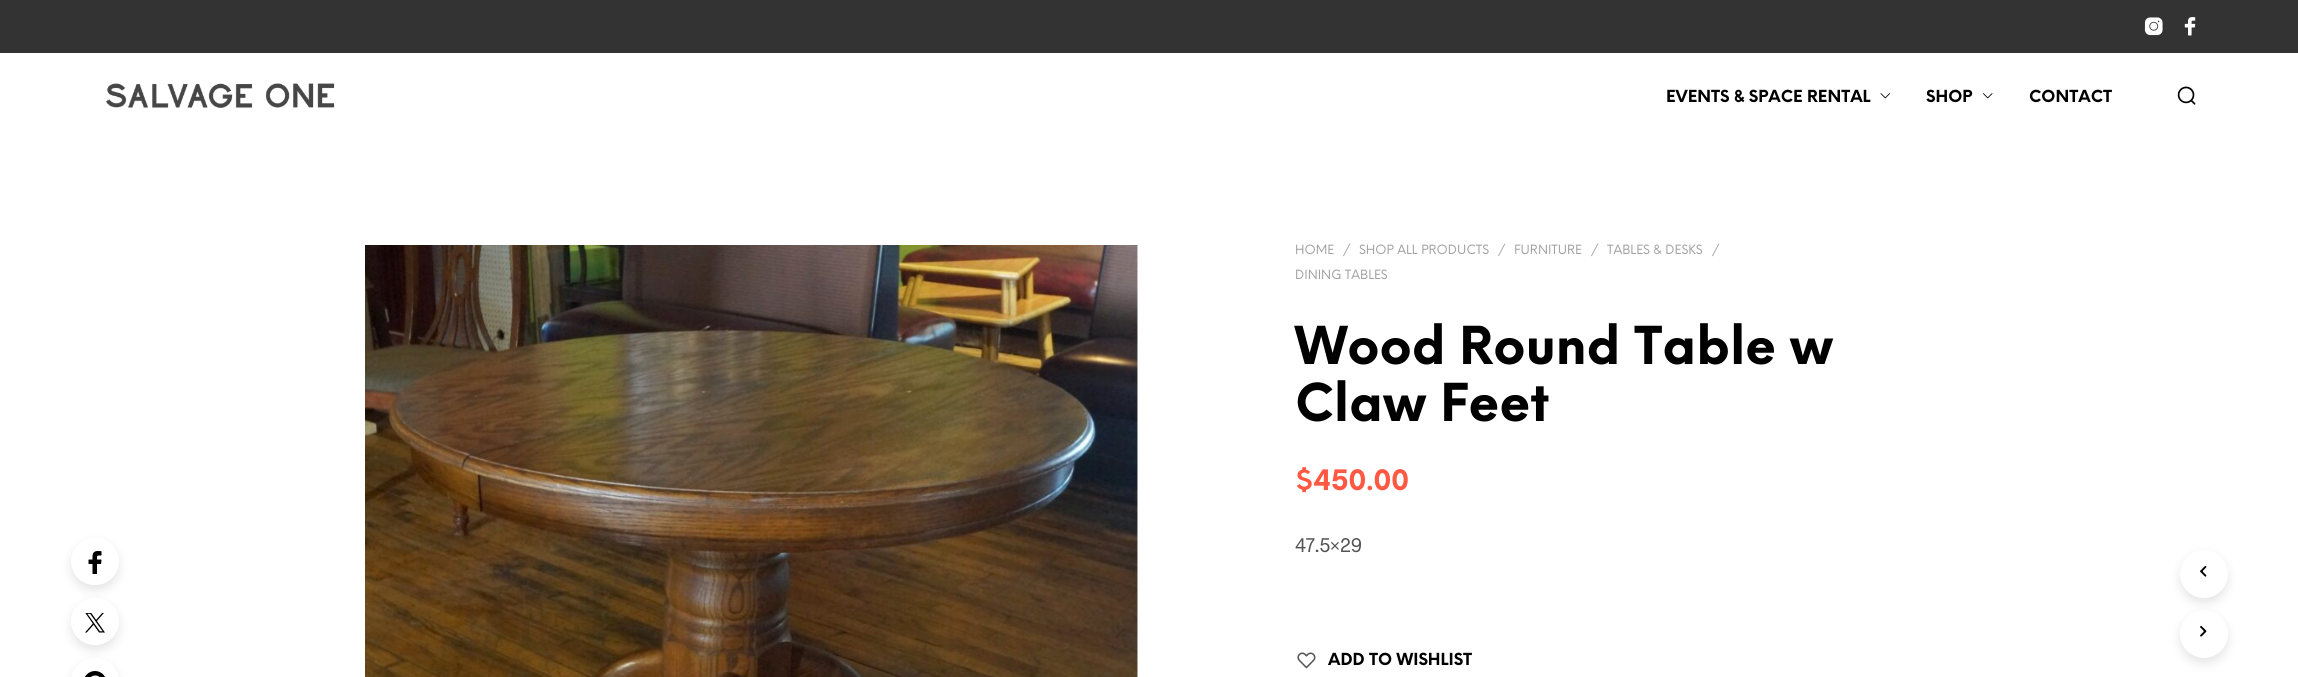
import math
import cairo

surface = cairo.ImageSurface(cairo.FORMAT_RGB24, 2298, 677)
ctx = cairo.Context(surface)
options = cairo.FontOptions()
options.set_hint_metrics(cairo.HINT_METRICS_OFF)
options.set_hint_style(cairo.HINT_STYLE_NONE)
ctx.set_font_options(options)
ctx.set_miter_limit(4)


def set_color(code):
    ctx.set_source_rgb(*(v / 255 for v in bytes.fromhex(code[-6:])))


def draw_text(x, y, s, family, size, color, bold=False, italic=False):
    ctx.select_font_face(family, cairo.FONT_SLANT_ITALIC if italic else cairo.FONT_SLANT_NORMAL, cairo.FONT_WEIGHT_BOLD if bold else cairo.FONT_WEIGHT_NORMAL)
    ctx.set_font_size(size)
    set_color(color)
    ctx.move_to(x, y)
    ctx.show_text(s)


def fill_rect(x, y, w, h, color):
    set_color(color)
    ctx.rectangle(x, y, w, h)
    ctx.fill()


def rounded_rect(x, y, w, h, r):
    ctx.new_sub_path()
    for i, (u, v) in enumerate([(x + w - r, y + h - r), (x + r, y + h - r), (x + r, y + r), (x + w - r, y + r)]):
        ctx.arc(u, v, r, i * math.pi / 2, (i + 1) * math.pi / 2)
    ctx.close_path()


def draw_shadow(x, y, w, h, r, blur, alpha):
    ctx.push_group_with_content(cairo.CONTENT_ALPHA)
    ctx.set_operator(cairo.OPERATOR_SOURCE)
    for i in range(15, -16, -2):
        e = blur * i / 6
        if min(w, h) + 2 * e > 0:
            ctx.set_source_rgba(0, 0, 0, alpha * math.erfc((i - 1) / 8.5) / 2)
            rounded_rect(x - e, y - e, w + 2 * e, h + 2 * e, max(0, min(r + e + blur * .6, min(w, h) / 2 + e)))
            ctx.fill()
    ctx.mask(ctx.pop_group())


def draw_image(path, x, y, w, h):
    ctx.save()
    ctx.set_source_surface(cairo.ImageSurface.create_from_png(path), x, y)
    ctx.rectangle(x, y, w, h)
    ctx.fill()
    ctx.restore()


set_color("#ffffff")
ctx.paint()
fill_rect(0, 0, 2298, 53, "#333333")
draw_image("assets/img1.png", 2144, 17, 19, 19)
draw_image("assets/img2.png", 2184, 17, 12, 19)
draw_image("assets/img3.png", 106, 83, 229, 25)
draw_text(1666, 102, "EVENTS & SPACE RENTAL", "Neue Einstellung", 16.25, "#000000", bold=True)
draw_image("assets/img4.png", 1880, 93, 10, 6)
draw_text(1926, 102, "SHOP", "Neue Einstellung", 16.25, "#000000", bold=True)
draw_image("assets/img5.png", 1983, 93, 10, 6)
draw_text(2029, 102, "CONTACT", "Neue Einstellung", 16.25, "#000000", bold=True)
draw_image("assets/img6.png", 2177, 86, 19, 19)
draw_image("assets/img7.png", 365, 245, 773, 432)
draw_text(1295, 254, "HOME", "Neue Einstellung", 12.5, "#a1a1a1")
draw_text(1343, 254, "/", "Neue Einstellung", 12.5, "#a1a1a1")
draw_text(1359, 254, "SHOP ALL PRODUCTS", "Neue Einstellung", 12.5, "#a1a1a1")
draw_text(1498, 254, "/", "Neue Einstellung", 12.5, "#a1a1a1")
draw_text(1514, 254, "FURNITURE", "Neue Einstellung", 12.5, "#a1a1a1")
draw_text(1591, 254, "/", "Neue Einstellung", 12.5, "#a1a1a1")
draw_text(1607, 254, "TABLES & DESKS", "Neue Einstellung", 12.5, "#a1a1a1")
draw_text(1712, 254, "/", "Neue Einstellung", 12.5, "#a1a1a1")
draw_text(1295, 279, "DINING TABLES", "Neue Einstellung", 12.5, "#a1a1a1")
draw_text(1295, 364, "Wood Round Table w", "Neue Einstellung", 51, "#000000", bold=True)
draw_text(1295, 421, "Claw Feet", "Neue Einstellung", 51, "#000000", bold=True)
draw_text(1295, 490, "$450.00", "Neue Einstellung", 27.5, "#ff5943", bold=True)
set_color("#000000")
draw_shadow(71, 543, 48, 47, 23.5, 5, 0.1)
set_color("#ffffff")
rounded_rect(71, 538, 48, 47, 23.5)
ctx.fill()
draw_image("assets/img8.png", 88, 551, 14, 23)
set_color("#000000")
draw_shadow(71, 603, 48, 47, 23.5, 5, 0.1)
set_color("#ffffff")
rounded_rect(71, 598, 48, 47, 23.5)
ctx.fill()
draw_image("assets/img9.png", 85, 613, 20, 20)
set_color("#000000")
draw_shadow(71, 663, 48, 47, 23.5, 5, 0.1)
set_color("#ffffff")
rounded_rect(71, 658, 48, 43, 23.5)
ctx.fill()
draw_image("assets/img10.png", 85, 671, 20, 6)
draw_text(1295, 552, "47.5×29", "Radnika", 20, "#545454")
set_color("#000000")
draw_shadow(2180, 555, 48, 48, 24, 5, 0.1)
set_color("#ffffff")
ctx.arc(2204, 574, 24, 0, 2 * math.pi)
ctx.fill()
draw_image("assets/img11.png", 2200, 565, 7, 12)
set_color("#000000")
draw_shadow(2180, 615, 48, 48, 24, 5, 0.1)
set_color("#ffffff")
ctx.arc(2204, 634, 24, 0, 2 * math.pi)
ctx.fill()
draw_image("assets/img12.png", 2200, 625, 7, 12)
draw_image("assets/img13.png", 1297, 652, 19, 17)
draw_text(1328, 665, "ADD TO WISHLIST", "Neue Einstellung", 16.25, "#000000", bold=True)
surface.write_to_png("output.png")
